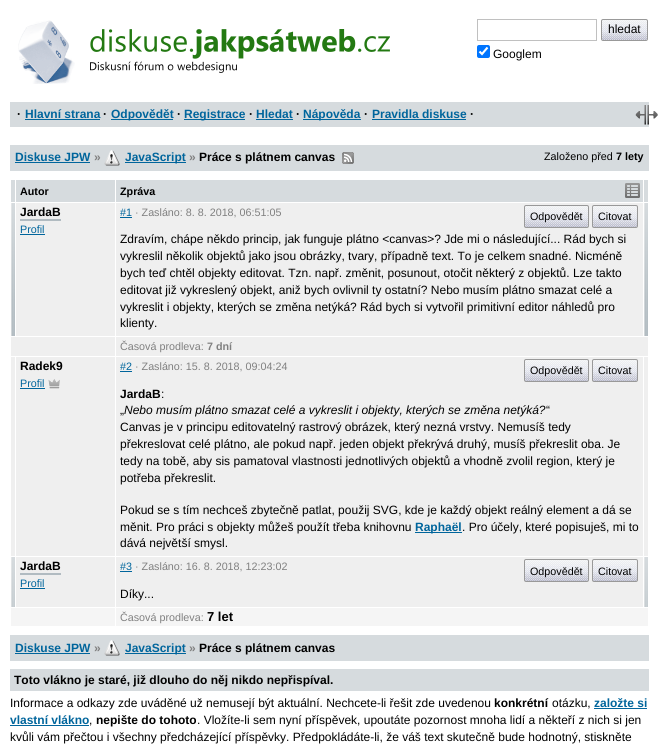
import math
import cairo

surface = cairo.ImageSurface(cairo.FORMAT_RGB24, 659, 752)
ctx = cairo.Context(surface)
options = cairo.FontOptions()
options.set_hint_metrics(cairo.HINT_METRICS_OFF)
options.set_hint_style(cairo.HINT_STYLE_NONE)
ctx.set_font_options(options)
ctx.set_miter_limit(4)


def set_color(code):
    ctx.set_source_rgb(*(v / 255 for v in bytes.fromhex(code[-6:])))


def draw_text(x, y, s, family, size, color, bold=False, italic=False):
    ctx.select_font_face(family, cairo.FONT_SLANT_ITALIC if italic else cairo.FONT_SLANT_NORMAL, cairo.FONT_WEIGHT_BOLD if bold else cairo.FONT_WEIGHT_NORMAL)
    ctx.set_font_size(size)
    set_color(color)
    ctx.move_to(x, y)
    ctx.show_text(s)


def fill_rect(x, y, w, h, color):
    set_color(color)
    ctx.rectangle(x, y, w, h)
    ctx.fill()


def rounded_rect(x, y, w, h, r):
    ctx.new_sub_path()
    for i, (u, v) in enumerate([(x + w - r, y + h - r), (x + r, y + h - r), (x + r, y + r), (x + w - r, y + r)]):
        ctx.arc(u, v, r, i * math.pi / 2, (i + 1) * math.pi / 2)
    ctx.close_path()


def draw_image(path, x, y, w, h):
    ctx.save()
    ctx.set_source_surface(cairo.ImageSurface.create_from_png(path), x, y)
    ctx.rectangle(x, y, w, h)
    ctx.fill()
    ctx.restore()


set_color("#ffffff")
ctx.paint()
draw_image("assets/img1.png", 18, 20, 57, 64)
draw_image("assets/img2.png", 90, 29, 300, 44)
ctx.rectangle(477.5, 19.5, 119, 21)
set_color("#c0c0c0")
ctx.set_line_width(1)
ctx.stroke()
set_color("#d6dbde")
rounded_rect(602, 20, 45, 20, 1)
ctx.fill()
draw_image("assets/img3.png", 602, 20, 45, 20)
rounded_rect(601.5, 19.5, 46, 21, 1.5)
set_color("#999999")
ctx.stroke()
draw_text(608, 33, "hledat", "Liberation Sans", 12, "#000000")
set_color("#0075ff")
rounded_rect(477, 45, 13, 13, 2)
ctx.fill()
ctx.new_path()
ctx.move_to(479.5, 51.5)
ctx.line_to(482, 54)
ctx.line_to(487.5, 47.5)
set_color("#ffffff")
ctx.set_line_width(2.1)
ctx.stroke()
draw_text(493, 58, "Googlem", "Liberation Sans", 12, "#000000")
fill_rect(10, 102, 639, 25, "#d6dbde")
draw_text(17, 118, "·", "Liberation Sans", 12, "#000000", bold=True)
draw_text(25, 118, "Hlavní strana", "Liberation Sans", 12, "#00659c", bold=True)
fill_rect(25, 119, 75, 1, "#00659c")
draw_text(103, 118, "·", "Liberation Sans", 12, "#000000", bold=True)
fill_rect(111, 119, 62, 1, "#00659c")
draw_text(111, 118, "Odpovědět", "Liberation Sans", 12, "#00659c", bold=True)
draw_text(177, 118, "·", "Liberation Sans", 12, "#000000", bold=True)
fill_rect(184, 119, 61, 1, "#00659c")
draw_text(184, 118, "Registrace", "Liberation Sans", 12, "#00659c", bold=True)
draw_text(249, 118, "·", "Liberation Sans", 12, "#000000", bold=True)
draw_text(256, 118, "Hledat", "Liberation Sans", 12, "#00659c", bold=True)
fill_rect(256, 119, 37, 1, "#00659c")
draw_text(296, 118, "·", "Liberation Sans", 12, "#000000", bold=True)
fill_rect(303, 119, 58, 1, "#00659c")
draw_text(303, 118, "Nápověda", "Liberation Sans", 12, "#00659c", bold=True)
draw_text(364, 118, "·", "Liberation Sans", 12, "#000000", bold=True)
draw_text(372, 118, "Pravidla diskuse", "Liberation Sans", 12, "#00659c", bold=True)
fill_rect(372, 119, 94, 1, "#00659c")
draw_text(470, 118, "·", "Liberation Sans", 12, "#000000", bold=True)
draw_image("assets/img4.png", 635, 105, 23, 20)
fill_rect(10, 145, 639, 26, "#d6dbde")
draw_text(15, 161, "Diskuse JPW", "Liberation Sans", 12, "#00659c", bold=True)
fill_rect(15, 162, 75, 1, "#00659c")
draw_text(94, 161, "»", "Liberation Sans", 12, "#808080", bold=True)
draw_image("assets/img5.png", 104, 150, 16, 16)
fill_rect(125, 162, 61, 1, "#00659c")
draw_text(125, 161, "JavaScript", "Liberation Sans", 12, "#00659c", bold=True)
draw_text(189, 161, "»", "Liberation Sans", 12, "#808080", bold=True)
draw_text(199, 161, "Práce s plátnem canvas", "Liberation Sans", 12, "#000000", bold=True)
draw_image("assets/img6.png", 342, 152, 12, 12)
draw_text(544, 160, "Založeno před", "Liberation Sans", 10.75, "#000000")
draw_text(616, 160, "7 lety", "Liberation Sans", 10.75, "#000000", bold=True)
fill_rect(116, 180, 527, 22, "#d6dbde")
draw_image("assets/img7.png", 625, 183, 15, 15)
fill_rect(11, 180, 4, 22, "#d6dbde")
fill_rect(16, 180, 99, 22, "#d6dbde")
draw_text(20, 195, "Autor", "Liberation Sans", 10.75, "#000000", bold=True)
draw_text(120, 195, "Zpráva", "Liberation Sans", 10.75, "#000000", bold=True)
fill_rect(644, 180, 4, 22, "#d6dbde")
fill_rect(16, 203, 627, 133, "#efefef")
draw_image("assets/img8.png", 11, 203, 4, 133)
draw_text(20, 216, "JardaB", "Liberation Sans", 12, "#000000", bold=True)
fill_rect(20, 219, 41, 2, "#b1bbc1")
draw_text(20, 233, "Profil", "Liberation Sans", 10.75, "#00659c")
fill_rect(20, 234, 25, 1, "#00659c")
draw_text(120, 216, "#1", "Liberation Sans", 10.75, "#00659c")
fill_rect(120, 217, 12, 1, "#00659c")
draw_text(135, 216, "· Zasláno: 8. 8. 2018, 06:51:05", "Liberation Sans", 10.75, "#808080")
set_color("#d6dbde")
rounded_rect(525, 206, 63, 21, 1)
ctx.fill()
draw_image("assets/img9.png", 525, 206, 63, 21)
rounded_rect(524.5, 205.5, 64, 22, 1.5)
set_color("#999999")
ctx.set_line_width(1)
ctx.stroke()
draw_text(530, 220, "Odpovědět", "Liberation Sans", 10.75, "#000000")
set_color("#d6dbde")
rounded_rect(593, 206, 44, 21, 1)
ctx.fill()
draw_image("assets/img10.png", 593, 206, 44, 21)
rounded_rect(592.5, 205.5, 45, 22, 1.5)
set_color("#999999")
ctx.stroke()
draw_text(598, 220, "Citovat", "Liberation Sans", 10.75, "#000000")
draw_text(120, 243, "Zdravím, chápe někdo princip, jak funguje plátno <canvas>? Jde mi o následující... Rád bych si", "Liberation Sans", 12, "#000000")
draw_text(120, 260, "vykreslil několik objektů jako jsou obrázky, tvary, případně text. To je celkem snadné. Nicméně", "Liberation Sans", 12, "#000000")
draw_text(120, 277, "bych teď chtěl objekty editovat. Tzn. např. změnit, posunout, otočit některý z objektů. Lze takto", "Liberation Sans", 12, "#000000")
draw_text(120, 294, "editovat již vykreslený objekt, aniž bych ovlivnil ty ostatní? Nebo musím plátno smazat celé a", "Liberation Sans", 12, "#000000")
draw_text(120, 311, "vykreslit i objekty, kterých se změna netýká? Rád bych si vytvořil primitivní editor náhledů pro", "Liberation Sans", 12, "#000000")
draw_text(120, 327, "klienty.", "Liberation Sans", 12, "#000000")
draw_image("assets/img8.png", 644, 203, 4, 133)
fill_rect(11, 337, 637, 19, "#efefef")
draw_text(120, 350, "Časová prodleva:", "Liberation Sans", 10.75, "#808080")
draw_text(207, 350, "7 dní", "Liberation Sans", 10.75, "#808080", bold=True)
fill_rect(11, 357, 637, 199, "#efefef")
fill_rect(15, 356, 1, 201, "#ffffff")
draw_text(20, 370, "Radek9", "Liberation Sans", 12, "#000000", bold=True)
draw_text(20, 387, "Profil", "Liberation Sans", 10.75, "#00659c")
fill_rect(20, 388, 25, 1, "#00659c")
draw_image("assets/img11.png", 48, 379, 12, 10)
draw_text(120, 370, "#2", "Liberation Sans", 10.75, "#00659c")
fill_rect(120, 371, 12, 1, "#00659c")
draw_text(135, 370, "· Zasláno: 15. 8. 2018, 09:04:24", "Liberation Sans", 10.75, "#808080")
set_color("#d6dbde")
rounded_rect(525, 360, 63, 21, 1)
ctx.fill()
draw_image("assets/img9.png", 525, 360, 63, 21)
rounded_rect(524.5, 359.5, 64, 22, 1.5)
set_color("#999999")
ctx.stroke()
draw_text(530, 374, "Odpovědět", "Liberation Sans", 10.75, "#000000")
set_color("#d6dbde")
rounded_rect(593, 360, 44, 21, 1)
ctx.fill()
draw_image("assets/img10.png", 593, 360, 44, 21)
rounded_rect(592.5, 359.5, 45, 22, 1.5)
set_color("#999999")
ctx.stroke()
draw_text(598, 374, "Citovat", "Liberation Sans", 10.75, "#000000")
draw_text(120, 398, "JardaB", "Liberation Sans", 12, "#000000", bold=True)
draw_text(161, 398, ":", "Liberation Sans", 12, "#000000")
draw_text(124, 414, "Nebo musím plátno smazat celé a vykreslit i objekty, kterých se změna netýká?", "Liberation Sans", 12, "#000000", italic=True)
draw_text(546, 414, "“", "Liberation Sans", 12, "#000000")
draw_text(120, 414, "„", "Liberation Sans", 12, "#000000")
draw_text(120, 431, "Canvas je v principu editovatelný rastrový obrázek, který nezná vrstvy. Nemusíš tedy", "Liberation Sans", 12, "#000000")
draw_text(120, 448, "překreslovat celé plátno, ale pokud např. jeden objekt překrývá druhý, musíš překreslit oba. Je", "Liberation Sans", 12, "#000000")
draw_text(120, 465, "tedy na tobě, aby sis pamatoval vlastnosti jednotlivých objektů a vhodně zvolil region, který je", "Liberation Sans", 12, "#000000")
draw_text(120, 482, "potřeba překreslit.", "Liberation Sans", 12, "#000000")
draw_text(120, 514, "Pokud se s tím nechceš zbytečně patlat, použij SVG, kde je každý objekt reálný element a dá se", "Liberation Sans", 12, "#000000")
draw_text(120, 531, "měnit. Pro práci s objekty můžeš použít třeba knihovnu", "Liberation Sans", 12, "#000000")
fill_rect(415, 532, 47, 1, "#00659c")
draw_text(415, 531, "Raphaël", "Liberation Sans", 12, "#00659c", bold=True)
draw_text(462, 531, ". Pro účely, které popisuješ, mi to", "Liberation Sans", 12, "#000000")
draw_text(120, 547, "dává největší smysl.", "Liberation Sans", 12, "#000000")
fill_rect(643, 356, 1, 201, "#ffffff")
fill_rect(16, 557, 627, 50, "#efefef")
draw_image("assets/img12.png", 11, 557, 4, 50)
draw_text(20, 570, "JardaB", "Liberation Sans", 12, "#000000", bold=True)
fill_rect(20, 573, 41, 2, "#b1bbc1")
draw_text(20, 587, "Profil", "Liberation Sans", 10.75, "#00659c")
fill_rect(20, 588, 25, 1, "#00659c")
fill_rect(115, 202, 1, 406, "#ffffff")
draw_text(120, 570, "#3", "Liberation Sans", 10.75, "#00659c")
fill_rect(120, 571, 12, 1, "#00659c")
draw_text(135, 570, "· Zasláno: 16. 8. 2018, 12:23:02", "Liberation Sans", 10.75, "#808080")
set_color("#d6dbde")
rounded_rect(525, 560, 63, 21, 1)
ctx.fill()
draw_image("assets/img9.png", 525, 560, 63, 21)
rounded_rect(524.5, 559.5, 64, 22, 1.5)
set_color("#999999")
ctx.stroke()
draw_text(530, 575, "Odpovědět", "Liberation Sans", 10.75, "#000000")
set_color("#d6dbde")
rounded_rect(593, 560, 44, 21, 1)
ctx.fill()
draw_image("assets/img10.png", 593, 560, 44, 21)
rounded_rect(592.5, 559.5, 45, 22, 1.5)
set_color("#999999")
ctx.stroke()
draw_text(598, 575, "Citovat", "Liberation Sans", 10.75, "#000000")
draw_text(120, 598, "Díky...", "Liberation Sans", 12, "#000000")
draw_image("assets/img12.png", 644, 557, 4, 50)
fill_rect(11, 608, 104, 18, "#f5f5f5")
fill_rect(116, 608, 532, 18, "#f5f5f5")
draw_text(120, 621, "Časová prodleva:", "Liberation Sans", 10.75, "#808080")
draw_text(207, 621, "7 let", "Liberation Sans", 13, "#000000", bold=True)
fill_rect(10, 635, 639, 26, "#d6dbde")
draw_text(15, 652, "Diskuse JPW", "Liberation Sans", 12, "#00659c", bold=True)
fill_rect(15, 653, 75, 1, "#00659c")
draw_text(94, 652, "»", "Liberation Sans", 12, "#808080", bold=True)
draw_image("assets/img5.png", 104, 640, 16, 16)
fill_rect(125, 653, 61, 1, "#00659c")
draw_text(125, 652, "JavaScript", "Liberation Sans", 12, "#00659c", bold=True)
draw_text(189, 652, "»", "Liberation Sans", 12, "#808080", bold=True)
draw_text(199, 652, "Práce s plátnem canvas", "Liberation Sans", 12, "#000000", bold=True)
fill_rect(10, 669, 639, 22, "#d6dbde")
draw_text(14, 684, "Toto vlákno je staré, již dlouho do něj nikdo nepřispíval.", "Liberation Sans", 12, "#000000", bold=True)
draw_text(10, 707, "Informace a odkazy zde uváděné už nemusejí být aktuální. Nechcete-li řešit zde uvedenou", "Liberation Sans", 12, "#000000")
draw_text(494, 707, "konkrétní", "Liberation Sans", 12, "#000000", bold=True)
draw_text(552, 707, "otázku,", "Liberation Sans", 12, "#000000")
draw_text(594, 707, "založte si", "Liberation Sans", 12, "#00659c", bold=True)
fill_rect(594, 708, 53, 1, "#00659c")
draw_text(10, 724, "vlastní vlákno", "Liberation Sans", 12, "#00659c", bold=True)
fill_rect(10, 725, 79, 1, "#00659c")
draw_text(89, 724, ",", "Liberation Sans", 12, "#000000")
draw_text(96, 724, "nepište do tohoto", "Liberation Sans", 12, "#000000", bold=True)
draw_text(197, 724, ". Vložíte-li sem nyní příspěvek, upoutáte pozornost mnoha lidí a někteří z nich si jen", "Liberation Sans", 12, "#000000")
draw_text(10, 741, "kvůli vám přečtou i všechny předcházející příspěvky. Předpokládáte-li, že váš text skutečně bude hodnotný, stiskněte", "Liberation Sans", 12, "#000000")
surface.write_to_png("output.png")
